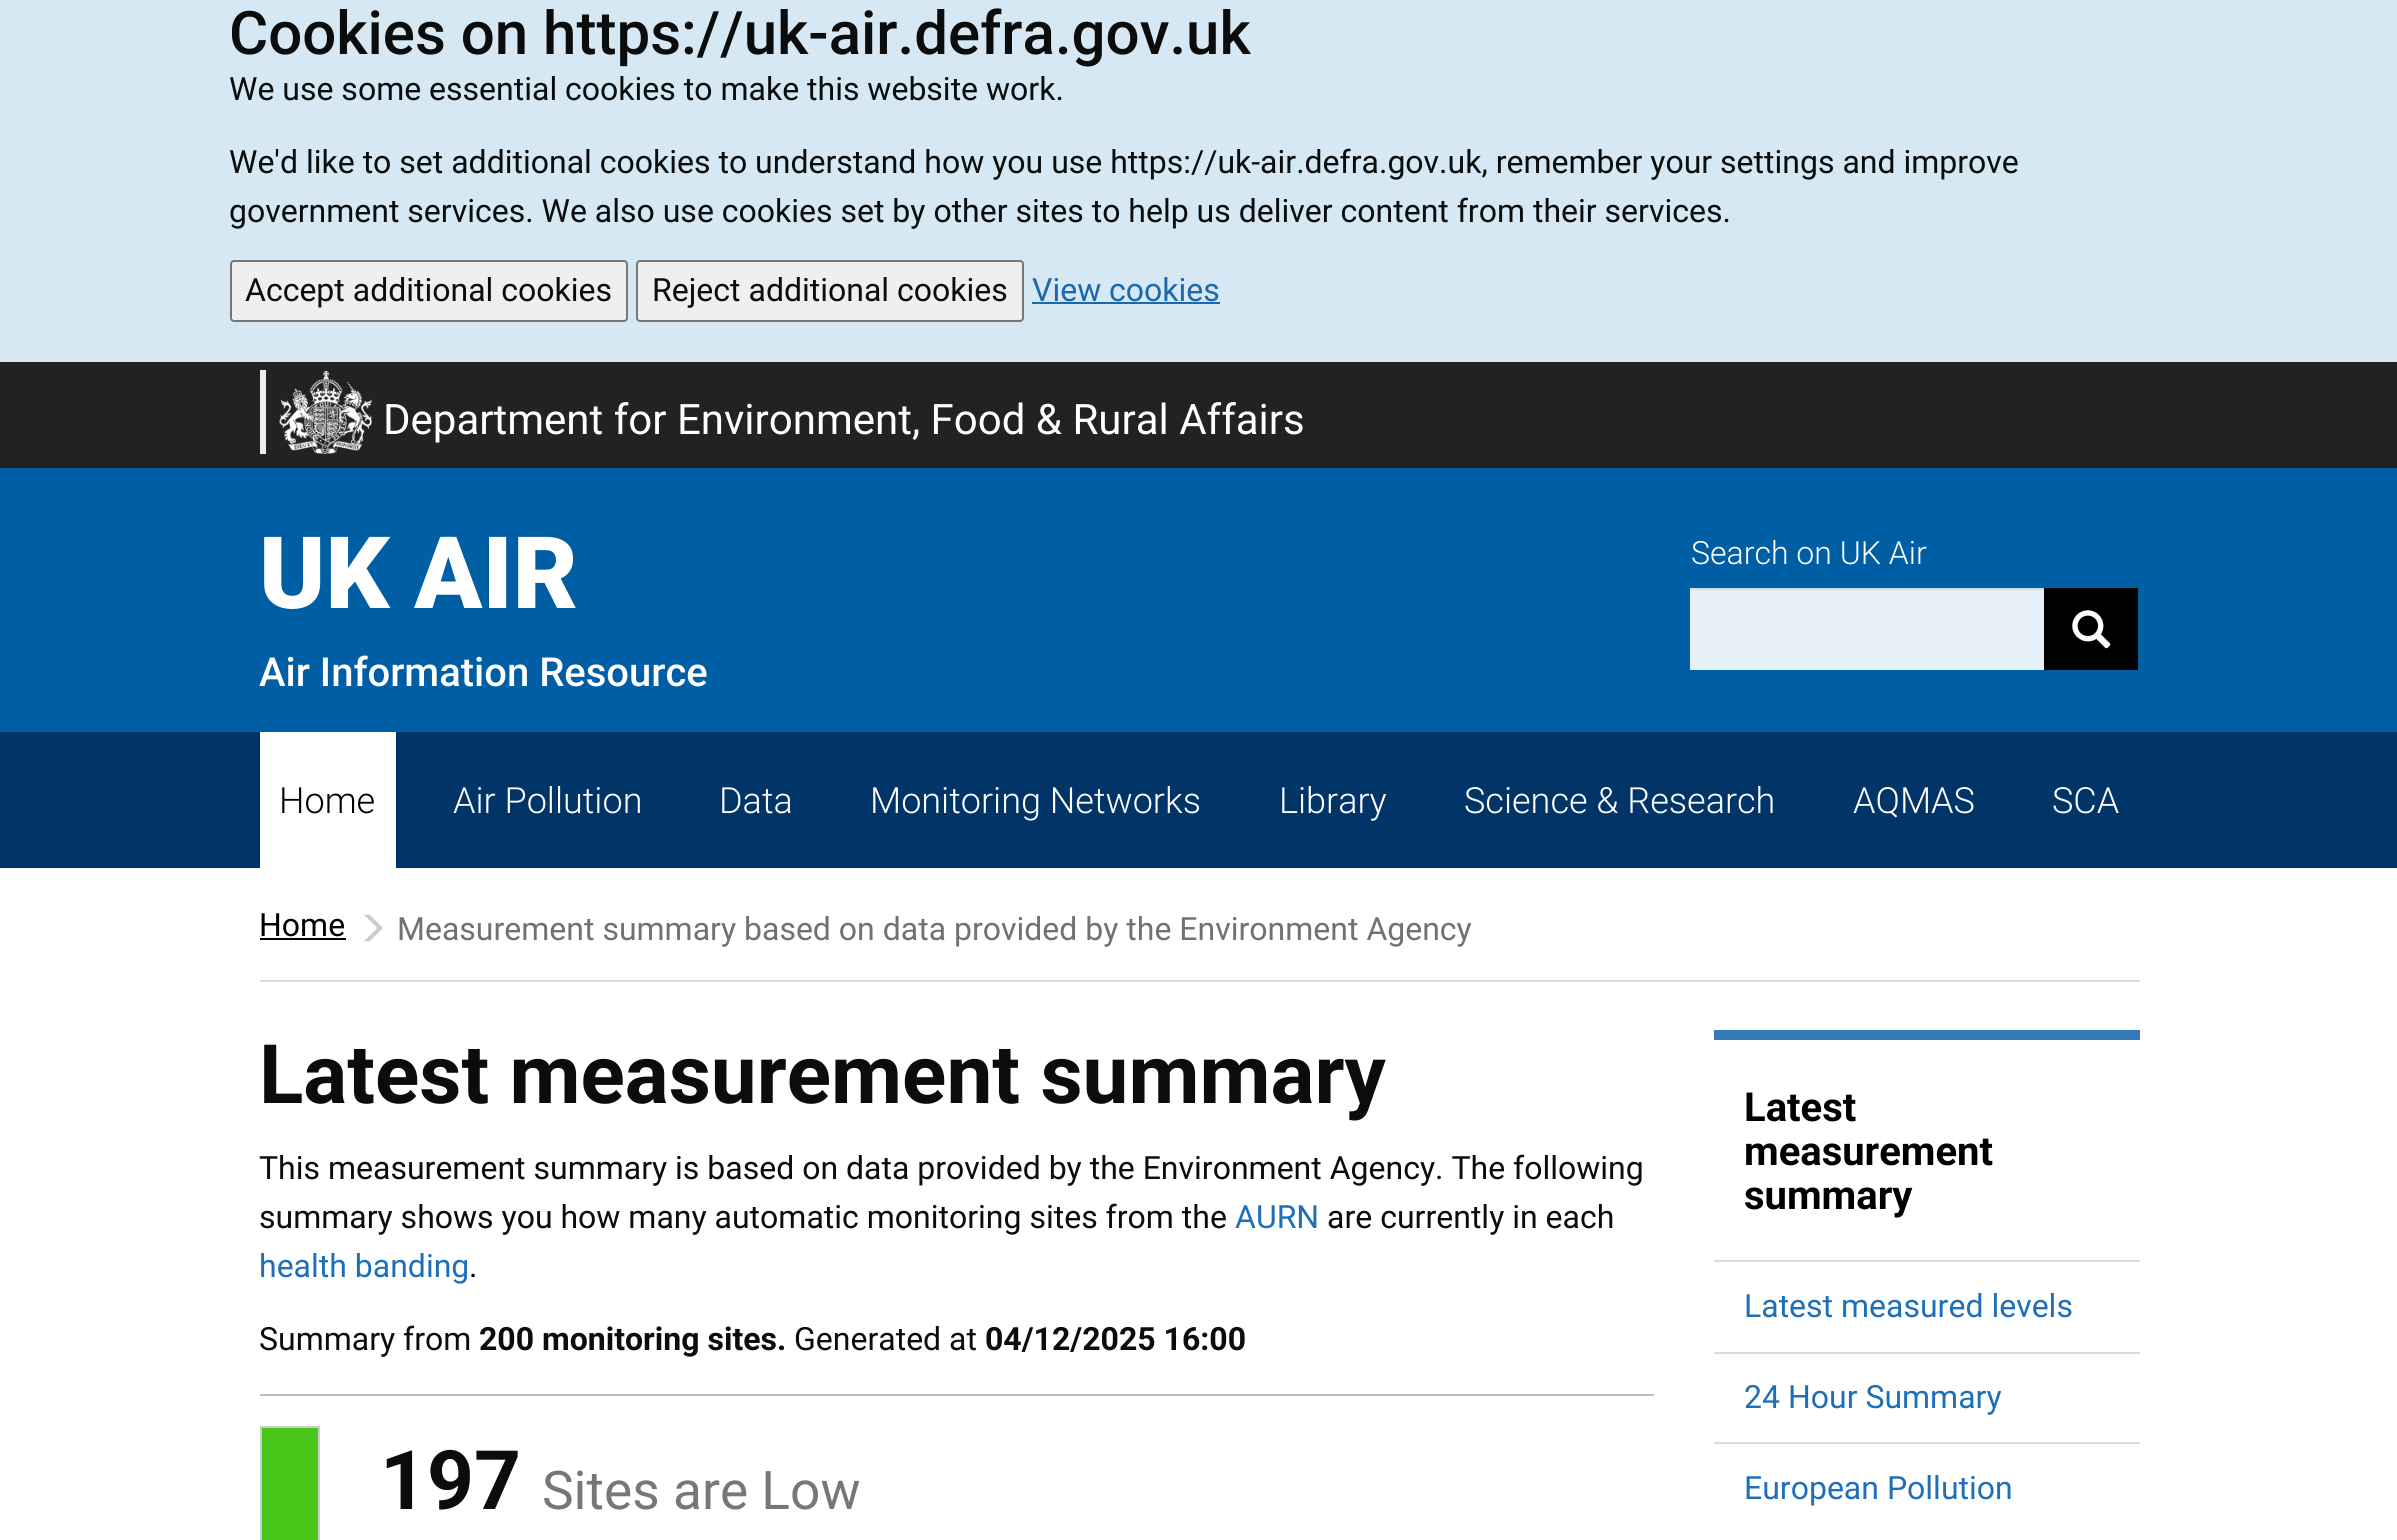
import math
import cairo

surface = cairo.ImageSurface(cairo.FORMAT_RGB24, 2397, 1540)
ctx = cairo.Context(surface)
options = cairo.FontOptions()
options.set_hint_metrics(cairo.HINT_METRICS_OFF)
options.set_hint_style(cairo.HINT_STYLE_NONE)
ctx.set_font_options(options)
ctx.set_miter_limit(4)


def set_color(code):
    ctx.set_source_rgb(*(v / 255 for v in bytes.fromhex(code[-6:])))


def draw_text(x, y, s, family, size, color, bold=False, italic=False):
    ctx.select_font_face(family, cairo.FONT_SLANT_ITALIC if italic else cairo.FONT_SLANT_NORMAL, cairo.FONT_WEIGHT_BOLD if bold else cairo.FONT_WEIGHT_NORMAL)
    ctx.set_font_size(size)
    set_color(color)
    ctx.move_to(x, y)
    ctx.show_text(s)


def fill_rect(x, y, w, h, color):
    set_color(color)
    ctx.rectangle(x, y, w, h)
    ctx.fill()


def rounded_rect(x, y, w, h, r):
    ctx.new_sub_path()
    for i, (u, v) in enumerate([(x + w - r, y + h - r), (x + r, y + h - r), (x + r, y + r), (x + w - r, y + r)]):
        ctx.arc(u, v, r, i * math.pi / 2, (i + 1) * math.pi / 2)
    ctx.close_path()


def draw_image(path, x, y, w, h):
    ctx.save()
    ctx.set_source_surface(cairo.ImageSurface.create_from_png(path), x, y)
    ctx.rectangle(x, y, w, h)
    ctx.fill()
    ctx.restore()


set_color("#ffffff")
ctx.paint()
fill_rect(0, 0, 2397, 362, "#d5e8f3")
draw_text(229, 54, "Cookies on https://uk-air.defra.gov.uk", "Roboto Medium", 60, "#0b0c0c")
draw_text(229, 100, "We use some essential cookies to make this website work.", "Roboto", 32, "#0b0c0c")
draw_text(229, 173, "We'd like to set additional cookies to understand how you use https://uk-air.defra.gov.uk, remember your settings and improve", "Roboto", 32, "#0b0c0c")
draw_text(229, 222, "government services. We also use cookies set by other sites to help us deliver content from their services.", "Roboto", 32, "#0b0c0c")
set_color("#efefef")
rounded_rect(231, 261, 396, 60, 3)
ctx.fill_preserve()
set_color("#767676")
ctx.stroke()
draw_text(245, 301, "Accept additional cookies", "Roboto", 32, "#0b0c0c")
set_color("#efefef")
rounded_rect(637, 261, 386, 60, 3)
ctx.fill_preserve()
set_color("#767676")
ctx.stroke()
draw_text(652, 301, "Reject additional cookies", "Roboto", 32, "#0b0c0c")
draw_text(1032, 301, "View cookies", "Roboto", 32, "#1b68ac")
fill_rect(1032, 302, 188, 2, "#1b68ac")
fill_rect(0, 362, 2397, 106, "#222222")
fill_rect(260, 370, 6, 84, "#eeeeee")
draw_image("assets/img1.png", 279, 370, 93, 84)
draw_text(383, 434, "Department for Environment, Food & Rural Affairs", "Roboto", 42, "#ffffff")
fill_rect(0, 468, 2397, 264, "#005ea5")
draw_text(259, 608, "UK AIR", "Roboto Black", 100, "#ffffff")
draw_text(259, 686, "Air Information Resource", "Roboto Medium", 40, "#ffffff")
draw_text(1691, 564, "Search on UK Air", "Roboto Light", 32, "#ffffff")
fill_rect(1690, 590, 354, 80, "#e5f0f8")
fill_rect(1690, 588, 356, 2, "#d4dee5")
fill_rect(2044, 588, 94, 82, "#000000")
draw_image("assets/img2.png", 2072, 610, 39, 39)
fill_rect(0, 732, 2397, 136, "#013567")
fill_rect(260, 732, 136, 136, "#ffffff")
draw_text(279, 813, "Home", "Roboto Light", 36, "#000000")
draw_text(453, 813, "Air Pollution", "Roboto Light", 36, "#ffffff")
draw_text(719, 813, "Data", "Roboto Light", 36, "#ffffff")
draw_text(870, 813, "Monitoring Networks", "Roboto Light", 36, "#ffffff")
draw_text(1279, 813, "Library", "Roboto Light", 36, "#ffffff")
draw_text(1464, 813, "Science & Research", "Roboto Light", 36, "#ffffff")
draw_text(1853, 813, "AQMAS", "Roboto Light", 36, "#ffffff")
draw_text(2052, 813, "SCA", "Roboto Light", 36, "#ffffff")
fill_rect(260, 980, 1880, 2, "#dddddd")
draw_text(259, 936, "Home", "Roboto", 32, "#000000")
fill_rect(260, 938, 86, 2, "#000000")
draw_image("assets/img3.png", 364, 914, 19, 28)
draw_text(397, 940, "Measurement summary based on data provided by the Environment Agency", "Roboto", 32, "#727171")
draw_text(259, 1103, "Latest measurement summary", "Roboto", 82, "#0b0c0c", bold=True)
draw_text(259, 1179, "This measurement summary is based on data provided by the Environment Agency. The following", "Roboto", 32, "#0b0c0c")
draw_text(259, 1228, "summary shows you how many automatic monitoring sites from the", "Roboto", 32, "#0b0c0c")
draw_text(1235, 1228, "AURN", "Roboto", 32, "#1d70b8")
draw_text(1327, 1228, "are currently in each", "Roboto", 32, "#0b0c0c")
draw_text(259, 1277, "health banding", "Roboto", 32, "#1d70b8")
draw_text(469, 1277, ".", "Roboto", 32, "#0b0c0c")
draw_text(259, 1350, "Summary from", "Roboto", 32, "#0b0c0c")
draw_text(479, 1350, "200 monitoring sites.", "Roboto", 32, "#0b0c0c", bold=True)
draw_text(794, 1350, "Generated at", "Roboto", 32, "#0b0c0c")
draw_text(985, 1350, "04/12/2025 16:00", "Roboto", 32, "#0b0c0c", bold=True)
fill_rect(260, 1394, 1394, 2, "#bfbfbf")
set_color("#49c61a")
ctx.rectangle(261, 1427, 58, 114)
ctx.fill_preserve()
set_color("#cccccc")
ctx.stroke()
draw_text(380, 1509, "197", "Roboto", 82, "#0b0c0c", bold=True)
draw_text(542, 1509, "Sites are Low", "Roboto", 53.25, "#777777")
fill_rect(1714, 1030, 426, 10, "#337ab7")
draw_text(1744, 1121, "Latest", "Roboto", 40, "#000000", bold=True)
draw_text(1744, 1165, "measurement", "Roboto", 40, "#000000", bold=True)
draw_text(1744, 1209, "summary", "Roboto", 40, "#000000", bold=True)
fill_rect(1714, 1260, 426, 2, "#dddddd")
draw_text(1744, 1317, "Latest measured levels", "Roboto", 32, "#1d70b8")
fill_rect(1714, 1352, 426, 2, "#dddddd")
draw_text(1744, 1408, "24 Hour Summary", "Roboto", 32, "#1d70b8")
fill_rect(1714, 1442, 426, 2, "#dddddd")
draw_text(1744, 1499, "European Pollution", "Roboto", 32, "#1d70b8")
surface.write_to_png("output.png")
